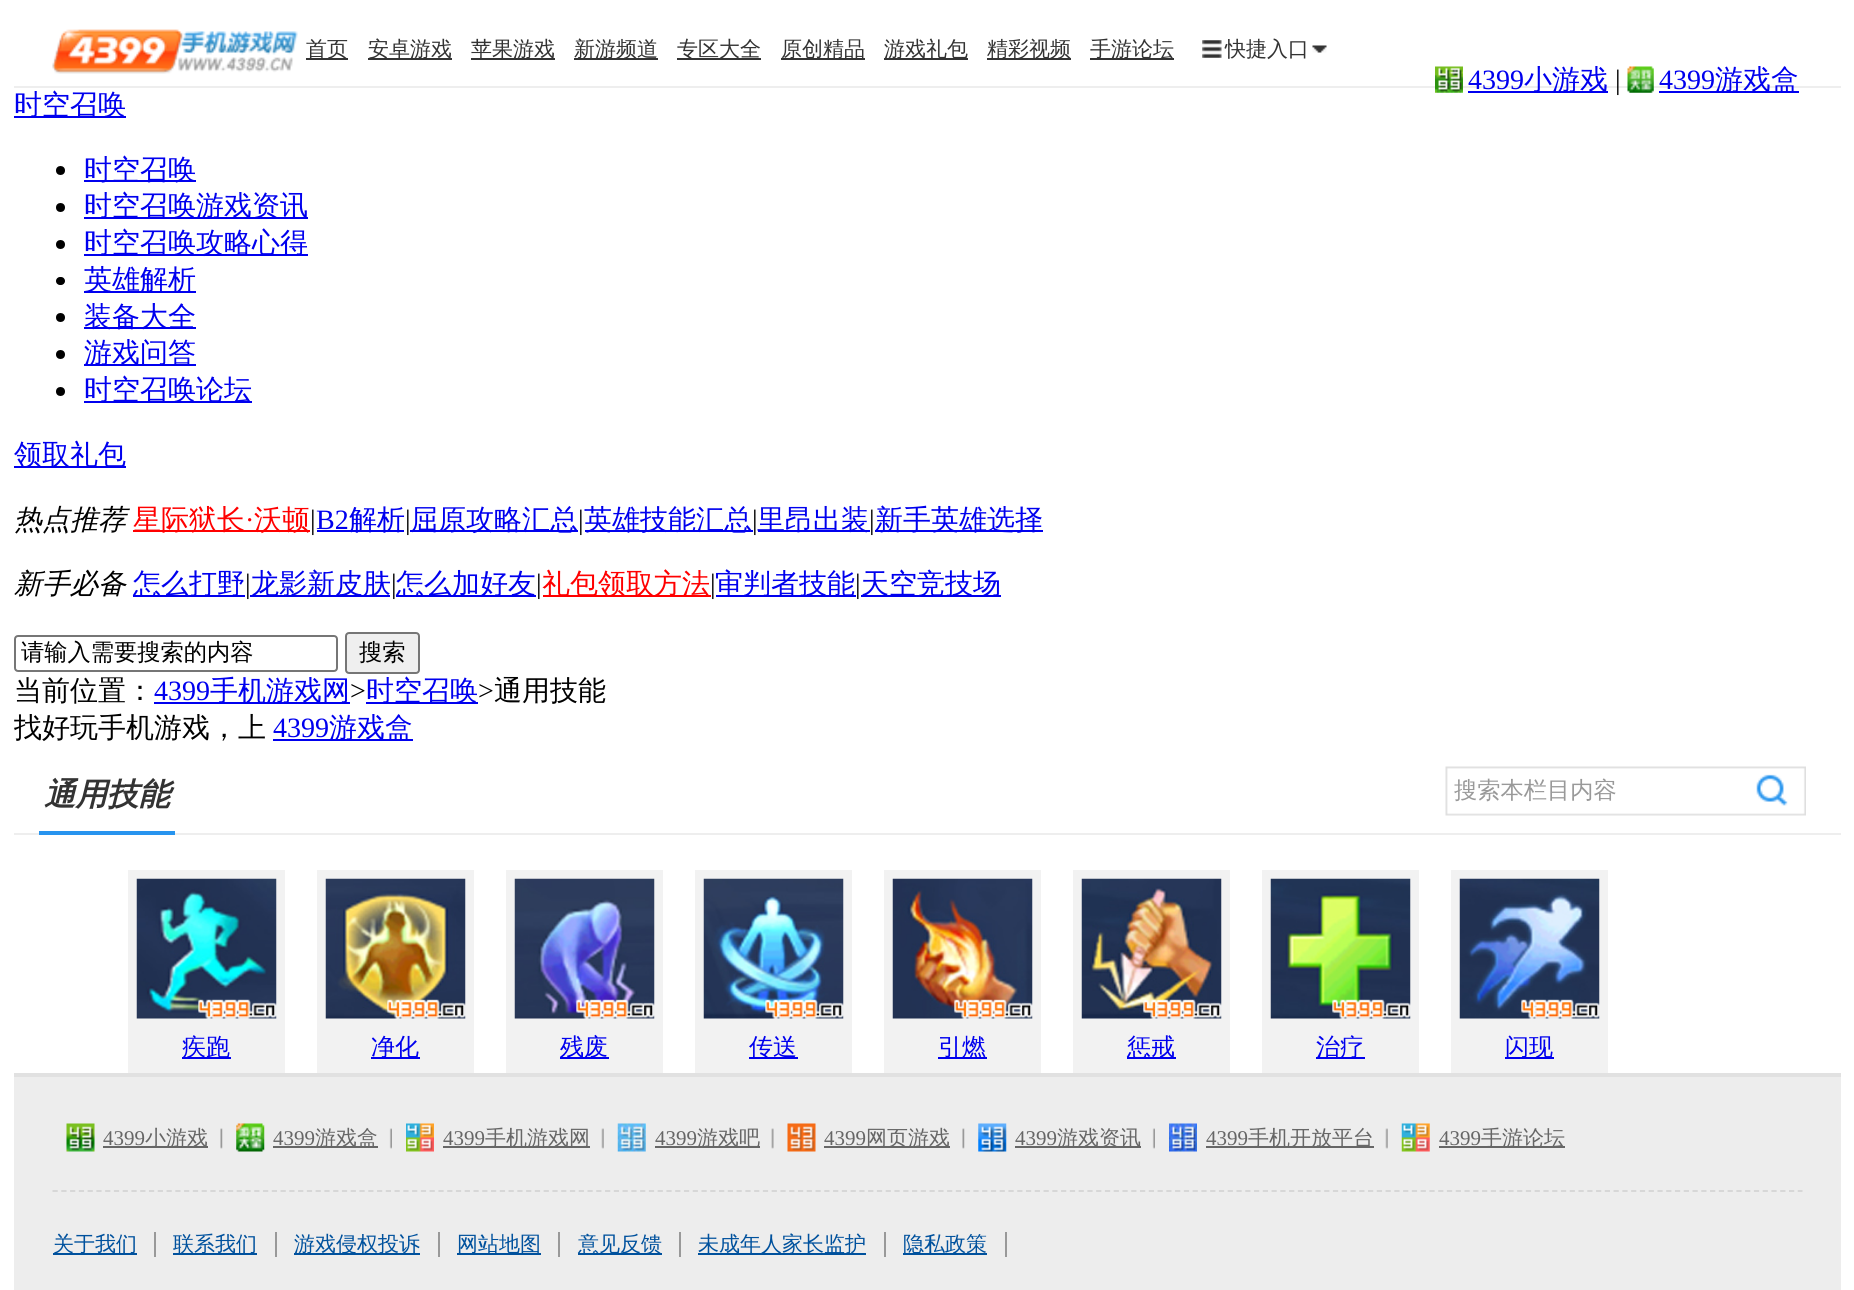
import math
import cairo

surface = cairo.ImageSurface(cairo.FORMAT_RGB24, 1854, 1290)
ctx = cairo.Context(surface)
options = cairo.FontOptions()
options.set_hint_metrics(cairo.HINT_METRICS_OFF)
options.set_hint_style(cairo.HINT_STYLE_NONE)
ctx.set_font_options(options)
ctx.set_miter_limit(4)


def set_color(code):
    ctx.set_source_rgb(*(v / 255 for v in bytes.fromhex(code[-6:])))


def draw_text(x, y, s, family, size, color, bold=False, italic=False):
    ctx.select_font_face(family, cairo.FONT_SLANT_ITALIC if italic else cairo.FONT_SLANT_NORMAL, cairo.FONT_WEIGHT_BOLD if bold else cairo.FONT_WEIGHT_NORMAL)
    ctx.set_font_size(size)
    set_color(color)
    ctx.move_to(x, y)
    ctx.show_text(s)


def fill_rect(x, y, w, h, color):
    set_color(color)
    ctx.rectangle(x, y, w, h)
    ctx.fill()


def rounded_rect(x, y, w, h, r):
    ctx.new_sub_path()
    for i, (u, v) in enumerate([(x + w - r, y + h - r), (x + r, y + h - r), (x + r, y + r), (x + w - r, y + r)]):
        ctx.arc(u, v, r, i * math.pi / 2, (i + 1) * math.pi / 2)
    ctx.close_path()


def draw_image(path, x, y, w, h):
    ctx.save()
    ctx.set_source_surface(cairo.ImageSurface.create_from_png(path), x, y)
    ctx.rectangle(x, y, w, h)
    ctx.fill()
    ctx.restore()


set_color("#ffffff")
ctx.paint()
fill_rect(14, 86, 1827, 2, "#eeeeee")
draw_image("assets/img1.png", 52, 29, 246, 45)
fill_rect(306, 58, 42, 2, "#333333")
draw_text(306, 56, "首页", "WenQuanYi Zen Hei Medium", 21, "#333333")
fill_rect(368, 58, 84, 2, "#333333")
draw_text(368, 56, "安卓游戏", "WenQuanYi Zen Hei Medium", 21, "#333333")
fill_rect(471, 58, 84, 2, "#333333")
draw_text(471, 56, "苹果游戏", "WenQuanYi Zen Hei Medium", 21, "#333333")
fill_rect(574, 58, 84, 2, "#333333")
draw_text(574, 56, "新游频道", "WenQuanYi Zen Hei Medium", 21, "#333333")
fill_rect(677, 58, 84, 2, "#333333")
draw_text(677, 56, "专区大全", "WenQuanYi Zen Hei Medium", 21, "#333333")
fill_rect(781, 58, 84, 2, "#333333")
draw_text(781, 56, "原创精品", "WenQuanYi Zen Hei Medium", 21, "#333333")
fill_rect(884, 58, 84, 2, "#333333")
draw_text(884, 56, "游戏礼包", "WenQuanYi Zen Hei Medium", 21, "#333333")
fill_rect(987, 58, 84, 2, "#333333")
draw_text(987, 56, "精彩视频", "WenQuanYi Zen Hei Medium", 21, "#333333")
fill_rect(1090, 58, 84, 2, "#333333")
draw_text(1090, 56, "手游论坛", "WenQuanYi Zen Hei Medium", 21, "#333333")
draw_image("assets/img2.png", 1202, 40, 20, 18)
draw_text(1225, 56, "快捷入口", "WenQuanYi Zen Hei Medium", 21, "#333333")
draw_image("assets/img3.png", 1312, 45, 15, 8)
draw_image("assets/img4.png", 1435, 66, 28, 27)
draw_text(1468, 89, "4399", "Liberation Serif", 28, "#0000ee")
fill_rect(1468, 91, 140, 2, "#0000ee")
draw_text(1524, 89, "小游戏", "WenQuanYi Zen Hei Medium", 28, "#0000ee")
draw_text(1615, 89, "|", "Liberation Serif", 28, "#000000")
draw_image("assets/img5.png", 1627, 66, 27, 27)
draw_text(1659, 89, "4399", "Liberation Serif", 28, "#0000ee")
fill_rect(1659, 91, 140, 2, "#0000ee")
draw_text(1715, 89, "游戏盒", "WenQuanYi Zen Hei Medium", 28, "#0000ee")
fill_rect(14, 116, 112, 2, "#0000ee")
draw_text(14, 114, "时空召唤", "WenQuanYi Zen Hei Medium", 28, "#0000ee")
set_color("#000000")
ctx.new_path()
ctx.arc(60.5, 170.5, 4.5, 0, 2 * math.pi)
ctx.fill()
fill_rect(84, 180, 112, 2, "#0000ee")
draw_text(84, 179, "时空召唤", "WenQuanYi Zen Hei Medium", 28, "#0000ee")
set_color("#000000")
ctx.new_path()
ctx.arc(60.5, 207.5, 4.5, 0, 2 * math.pi)
ctx.fill()
fill_rect(84, 217, 224, 2, "#0000ee")
draw_text(84, 215, "时空召唤游戏资讯", "WenQuanYi Zen Hei Medium", 28, "#0000ee")
set_color("#000000")
ctx.new_path()
ctx.arc(60.5, 244.5, 4.5, 0, 2 * math.pi)
ctx.fill()
fill_rect(84, 254, 224, 2, "#0000ee")
draw_text(84, 252, "时空召唤攻略心得", "WenQuanYi Zen Hei Medium", 28, "#0000ee")
set_color("#000000")
rounded_rect(56, 277, 9, 8, 4)
ctx.fill()
fill_rect(84, 291, 112, 2, "#0000ee")
draw_text(84, 289, "英雄解析", "WenQuanYi Zen Hei Medium", 28, "#0000ee")
set_color("#000000")
ctx.new_path()
ctx.arc(60.5, 317.5, 4.5, 0, 2 * math.pi)
ctx.fill()
fill_rect(84, 327, 112, 2, "#0000ee")
draw_text(84, 326, "装备大全", "WenQuanYi Zen Hei Medium", 28, "#0000ee")
set_color("#000000")
ctx.new_path()
ctx.arc(60.5, 354.5, 4.5, 0, 2 * math.pi)
ctx.fill()
fill_rect(84, 364, 112, 2, "#0000ee")
draw_text(84, 362, "游戏问答", "WenQuanYi Zen Hei Medium", 28, "#0000ee")
set_color("#000000")
ctx.new_path()
ctx.arc(60.5, 391.5, 4.5, 0, 2 * math.pi)
ctx.fill()
fill_rect(84, 401, 168, 2, "#0000ee")
draw_text(84, 399, "时空召唤论坛", "WenQuanYi Zen Hei Medium", 28, "#0000ee")
fill_rect(14, 466, 112, 2, "#0000ee")
draw_text(14, 464, "领取礼包", "WenQuanYi Zen Hei Medium", 28, "#0000ee")
draw_text(14, 529, "热点推荐", "WenQuanYi Zen Hei Medium", 28, "#000000", italic=True)
fill_rect(133, 530, 177, 2, "#ff0000")
draw_text(133, 529, "星际狱长", "WenQuanYi Zen Hei Medium", 28, "#ff0000")
draw_text(245, 529, "·", "Liberation Serif", 28, "#ff0000")
draw_text(254, 529, "沃顿", "WenQuanYi Zen Hei Medium", 28, "#ff0000")
draw_text(310, 529, "|", "Liberation Serif", 28, "#000000")
draw_text(316, 529, "B2", "Liberation Serif", 28, "#0000ee")
fill_rect(317, 530, 87, 2, "#0000ee")
draw_text(349, 529, "解析", "WenQuanYi Zen Hei Medium", 28, "#0000ee")
draw_text(405, 529, "|", "Liberation Serif", 28, "#000000")
fill_rect(410, 530, 168, 2, "#0000ee")
draw_text(410, 529, "屈原攻略汇总", "WenQuanYi Zen Hei Medium", 28, "#0000ee")
draw_text(578, 529, "|", "Liberation Serif", 28, "#000000")
fill_rect(585, 530, 168, 2, "#0000ee")
draw_text(584, 529, "英雄技能汇总", "WenQuanYi Zen Hei Medium", 28, "#0000ee")
draw_text(752, 529, "|", "Liberation Serif", 28, "#000000")
fill_rect(758, 530, 112, 2, "#0000ee")
draw_text(757, 529, "里昂出装", "WenQuanYi Zen Hei Medium", 28, "#0000ee")
draw_text(869, 529, "|", "Liberation Serif", 28, "#000000")
fill_rect(875, 530, 168, 2, "#0000ee")
draw_text(875, 529, "新手英雄选择", "WenQuanYi Zen Hei Medium", 28, "#0000ee")
draw_text(14, 593, "新手必备", "WenQuanYi Zen Hei Medium", 28, "#000000", italic=True)
fill_rect(133, 595, 112, 2, "#0000ee")
draw_text(133, 593, "怎么打野", "WenQuanYi Zen Hei Medium", 28, "#0000ee")
draw_text(245, 593, "|", "Liberation Serif", 28, "#000000")
fill_rect(250, 595, 140, 2, "#0000ee")
draw_text(251, 593, "龙影新皮肤", "WenQuanYi Zen Hei Medium", 28, "#0000ee")
draw_text(391, 593, "|", "Liberation Serif", 28, "#000000")
fill_rect(396, 595, 140, 2, "#0000ee")
draw_text(396, 593, "怎么加好友", "WenQuanYi Zen Hei Medium", 28, "#0000ee")
draw_text(536, 593, "|", "Liberation Serif", 28, "#000000")
fill_rect(543, 595, 168, 2, "#ff0000")
draw_text(542, 593, "礼包领取方法", "WenQuanYi Zen Hei Medium", 28, "#ff0000")
draw_text(710, 593, "|", "Liberation Serif", 28, "#000000")
fill_rect(716, 595, 140, 2, "#0000ee")
draw_text(715, 593, "审判者技能", "WenQuanYi Zen Hei Medium", 28, "#0000ee")
draw_text(855, 593, "|", "Liberation Serif", 28, "#000000")
fill_rect(861, 595, 140, 2, "#0000ee")
draw_text(861, 593, "天空竞技场", "WenQuanYi Zen Hei Medium", 28, "#0000ee")
rounded_rect(15, 636, 322, 35, 3)
set_color("#767676")
ctx.stroke()
draw_text(21, 660, "请输入需要搜索的内容", "WenQuanYi Zen Hei Medium", 23.25, "#000000")
set_color("#efefef")
rounded_rect(346, 633, 73, 40, 3)
ctx.fill_preserve()
set_color("#767676")
ctx.stroke()
draw_text(359, 660, "搜索", "WenQuanYi Zen Hei Medium", 23.25, "#000000")
draw_text(14, 700, "当前位置：", "WenQuanYi Zen Hei Medium", 28, "#000000")
draw_text(154, 700, "4399", "Liberation Serif", 28, "#0000ee")
fill_rect(154, 702, 196, 2, "#0000ee")
draw_text(210, 700, "手机游戏网", "WenQuanYi Zen Hei Medium", 28, "#0000ee")
draw_text(350, 700, ">", "Liberation Serif", 28, "#000000")
fill_rect(366, 702, 112, 2, "#0000ee")
draw_text(366, 700, "时空召唤", "WenQuanYi Zen Hei Medium", 28, "#0000ee")
draw_text(478, 700, ">", "Liberation Serif", 28, "#000000")
draw_text(494, 700, "通用技能", "WenQuanYi Zen Hei Medium", 28, "#000000")
draw_text(14, 737, "找好玩手机游戏，上", "WenQuanYi Zen Hei Medium", 28, "#000000")
draw_text(273, 737, "4399", "Liberation Serif", 28, "#0000ee")
fill_rect(273, 739, 140, 2, "#0000ee")
draw_text(329, 737, "游戏盒", "WenQuanYi Zen Hei Medium", 28, "#0000ee")
fill_rect(14, 833, 1827, 2, "#eeeeee")
fill_rect(39, 831, 136, 4, "#2794ef")
draw_text(44, 805, "通用技能", "WenQuanYi Zen Hei", 31.5, "#333333", bold=True, italic=True)
draw_image("assets/img6.png", 1445, 766, 361, 50)
draw_text(1454, 798, "搜索本栏目内容", "WenQuanYi Zen Hei Medium", 23.25, "#999999")
fill_rect(128, 870, 157, 203, "#f2f2f2")
draw_image("assets/img7.png", 136, 878, 141, 141)
fill_rect(182, 1057, 49, 2, "#0000ee")
draw_text(182, 1055, "疾跑", "WenQuanYi Zen Hei Medium", 24, "#0000ee")
fill_rect(317, 870, 157, 203, "#f2f2f2")
draw_image("assets/img8.png", 325, 878, 141, 141)
fill_rect(371, 1057, 49, 2, "#0000ee")
draw_text(371, 1055, "净化", "WenQuanYi Zen Hei Medium", 24, "#0000ee")
fill_rect(506, 870, 157, 203, "#f2f2f2")
draw_image("assets/img9.png", 514, 878, 141, 141)
fill_rect(560, 1057, 49, 2, "#0000ee")
draw_text(560, 1055, "残废", "WenQuanYi Zen Hei Medium", 24, "#0000ee")
fill_rect(695, 870, 157, 203, "#f2f2f2")
draw_image("assets/img10.png", 703, 878, 141, 141)
fill_rect(749, 1057, 49, 2, "#0000ee")
draw_text(749, 1055, "传送", "WenQuanYi Zen Hei Medium", 24, "#0000ee")
fill_rect(884, 870, 157, 203, "#f2f2f2")
draw_image("assets/img11.png", 892, 878, 141, 141)
fill_rect(938, 1057, 49, 2, "#0000ee")
draw_text(938, 1055, "引燃", "WenQuanYi Zen Hei Medium", 24, "#0000ee")
fill_rect(1073, 870, 157, 203, "#f2f2f2")
draw_image("assets/img12.png", 1081, 878, 141, 141)
fill_rect(1127, 1057, 49, 2, "#0000ee")
draw_text(1127, 1055, "惩戒", "WenQuanYi Zen Hei Medium", 24, "#0000ee")
fill_rect(1262, 870, 157, 203, "#f2f2f2")
draw_image("assets/img13.png", 1270, 878, 141, 141)
fill_rect(1316, 1057, 49, 2, "#0000ee")
draw_text(1316, 1055, "治疗", "WenQuanYi Zen Hei Medium", 24, "#0000ee")
fill_rect(1451, 870, 157, 203, "#f2f2f2")
draw_image("assets/img14.png", 1459, 878, 141, 141)
fill_rect(1505, 1057, 49, 2, "#0000ee")
draw_text(1505, 1055, "闪现", "WenQuanYi Zen Hei Medium", 24, "#0000ee")
fill_rect(14, 1077, 1827, 213, "#ededed")
fill_rect(14, 1073, 1827, 4, "#e1e1e1")
ctx.new_path()
ctx.move_to(52.5, 1191)
ctx.line_to(1802.5, 1191)
set_color("#d5d5d5")
ctx.set_line_width(1.8)
ctx.set_dash([5.25, 3.52])
ctx.stroke()
draw_image("assets/img15.png", 220, 1128, 3, 21)
draw_image("assets/img16.png", 66, 1123, 29, 29)
draw_text(103, 1145, "4399", "Liberation Serif", 21, "#666666")
fill_rect(103, 1146, 105, 2, "#666666")
draw_text(145, 1145, "小游戏", "WenQuanYi Zen Hei Medium", 21, "#666666")
draw_image("assets/img17.png", 389, 1128, 3, 21)
draw_image("assets/img18.png", 236, 1123, 29, 29)
draw_text(273, 1145, "4399", "Liberation Serif", 21, "#666666")
fill_rect(273, 1146, 105, 2, "#666666")
draw_text(315, 1145, "游戏盒", "WenQuanYi Zen Hei Medium", 21, "#666666")
draw_image("assets/img19.png", 601, 1128, 3, 21)
draw_image("assets/img20.png", 406, 1123, 28, 29)
draw_text(443, 1145, "4399", "Liberation Serif", 21, "#666666")
fill_rect(443, 1146, 147, 2, "#666666")
draw_text(485, 1145, "手机游戏网", "WenQuanYi Zen Hei Medium", 21, "#666666")
draw_image("assets/img21.png", 771, 1128, 3, 21)
draw_image("assets/img22.png", 617, 1123, 29, 29)
draw_text(655, 1145, "4399", "Liberation Serif", 21, "#666666")
fill_rect(655, 1146, 105, 2, "#666666")
draw_text(697, 1145, "游戏吧", "WenQuanYi Zen Hei Medium", 21, "#666666")
draw_image("assets/img15.png", 962, 1128, 3, 21)
draw_image("assets/img23.png", 787, 1123, 29, 29)
draw_text(824, 1145, "4399", "Liberation Serif", 21, "#666666")
fill_rect(824, 1146, 126, 2, "#666666")
draw_text(866, 1145, "网页游戏", "WenQuanYi Zen Hei Medium", 21, "#666666")
draw_image("assets/img17.png", 1152, 1128, 3, 21)
draw_image("assets/img24.png", 978, 1123, 29, 29)
draw_text(1015, 1145, "4399", "Liberation Serif", 21, "#666666")
fill_rect(1015, 1146, 126, 2, "#666666")
draw_text(1057, 1145, "游戏资讯", "WenQuanYi Zen Hei Medium", 21, "#666666")
draw_image("assets/img19.png", 1385, 1128, 3, 21)
draw_image("assets/img25.png", 1169, 1123, 28, 29)
draw_text(1206, 1145, "4399", "Liberation Serif", 21, "#666666")
fill_rect(1206, 1146, 168, 2, "#666666")
draw_text(1248, 1145, "手机开放平台", "WenQuanYi Zen Hei Medium", 21, "#666666")
draw_image("assets/img26.png", 1401, 1123, 29, 29)
draw_text(1439, 1145, "4399", "Liberation Serif", 21, "#666666")
fill_rect(1439, 1146, 126, 2, "#666666")
draw_text(1481, 1145, "手游论坛", "WenQuanYi Zen Hei Medium", 21, "#666666")
fill_rect(53, 1253, 84, 2, "#00519d")
draw_text(53, 1251, "关于我们", "WenQuanYi Zen Hei Medium", 21, "#00519d")
fill_rect(154, 1232, 2, 25, "#999999")
fill_rect(173, 1253, 84, 2, "#00519d")
draw_text(173, 1251, "联系我们", "WenQuanYi Zen Hei Medium", 21, "#00519d")
fill_rect(275, 1232, 2, 25, "#999999")
fill_rect(294, 1253, 126, 2, "#00519d")
draw_text(294, 1251, "游戏侵权投诉", "WenQuanYi Zen Hei Medium", 21, "#00519d")
fill_rect(438, 1232, 2, 25, "#999999")
fill_rect(457, 1253, 84, 2, "#00519d")
draw_text(457, 1251, "网站地图", "WenQuanYi Zen Hei Medium", 21, "#00519d")
fill_rect(558, 1232, 2, 25, "#999999")
fill_rect(578, 1253, 84, 2, "#00519d")
draw_text(578, 1251, "意见反馈", "WenQuanYi Zen Hei Medium", 21, "#00519d")
fill_rect(679, 1232, 2, 25, "#999999")
fill_rect(698, 1253, 168, 2, "#00519d")
draw_text(698, 1251, "未成年人家长监护", "WenQuanYi Zen Hei Medium", 21, "#00519d")
fill_rect(884, 1232, 2, 25, "#999999")
fill_rect(903, 1253, 84, 2, "#00519d")
draw_text(903, 1251, "隐私政策", "WenQuanYi Zen Hei Medium", 21, "#00519d")
fill_rect(1005, 1232, 2, 25, "#999999")
surface.write_to_png("output.png")
